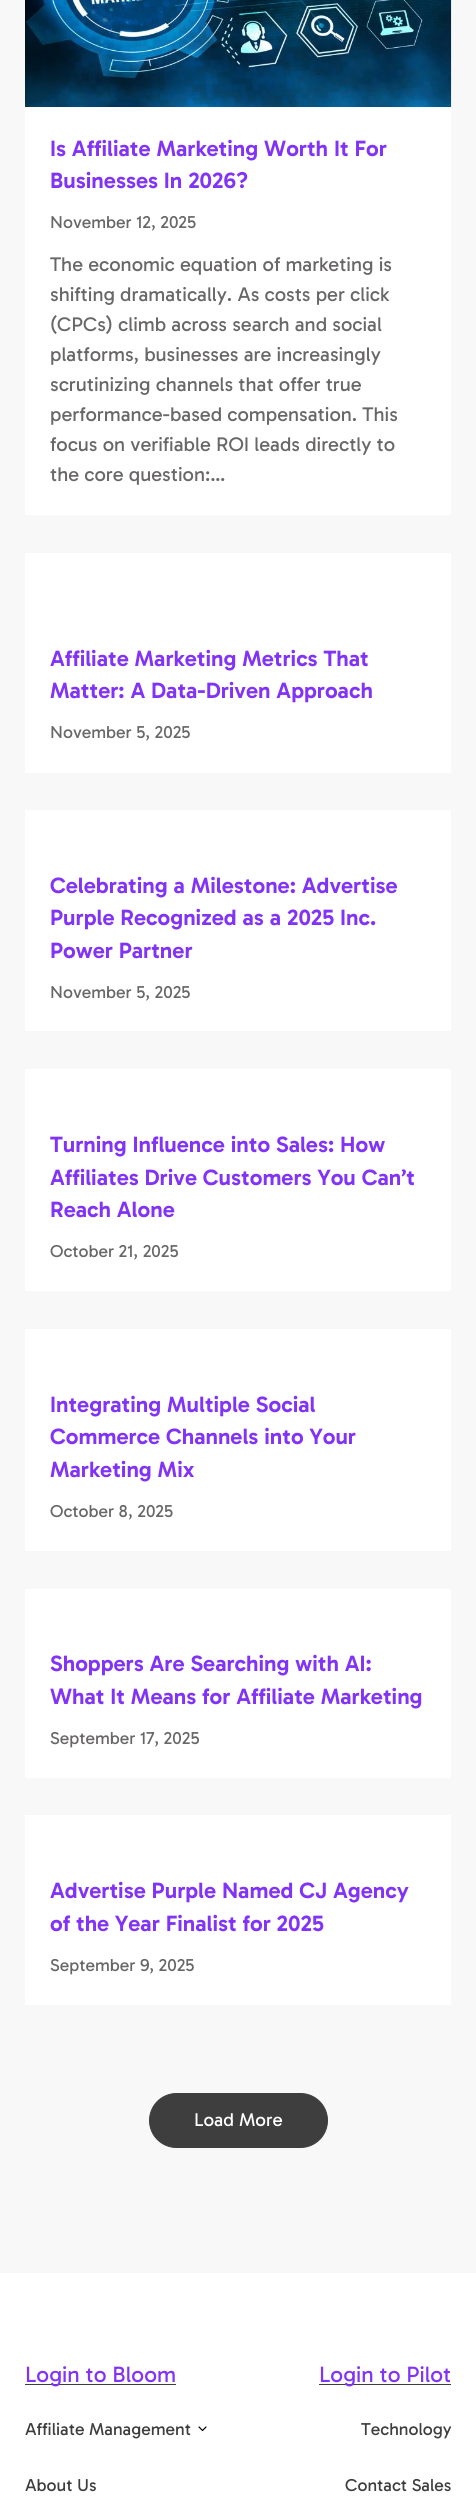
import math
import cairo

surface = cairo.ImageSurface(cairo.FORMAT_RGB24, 476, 2510)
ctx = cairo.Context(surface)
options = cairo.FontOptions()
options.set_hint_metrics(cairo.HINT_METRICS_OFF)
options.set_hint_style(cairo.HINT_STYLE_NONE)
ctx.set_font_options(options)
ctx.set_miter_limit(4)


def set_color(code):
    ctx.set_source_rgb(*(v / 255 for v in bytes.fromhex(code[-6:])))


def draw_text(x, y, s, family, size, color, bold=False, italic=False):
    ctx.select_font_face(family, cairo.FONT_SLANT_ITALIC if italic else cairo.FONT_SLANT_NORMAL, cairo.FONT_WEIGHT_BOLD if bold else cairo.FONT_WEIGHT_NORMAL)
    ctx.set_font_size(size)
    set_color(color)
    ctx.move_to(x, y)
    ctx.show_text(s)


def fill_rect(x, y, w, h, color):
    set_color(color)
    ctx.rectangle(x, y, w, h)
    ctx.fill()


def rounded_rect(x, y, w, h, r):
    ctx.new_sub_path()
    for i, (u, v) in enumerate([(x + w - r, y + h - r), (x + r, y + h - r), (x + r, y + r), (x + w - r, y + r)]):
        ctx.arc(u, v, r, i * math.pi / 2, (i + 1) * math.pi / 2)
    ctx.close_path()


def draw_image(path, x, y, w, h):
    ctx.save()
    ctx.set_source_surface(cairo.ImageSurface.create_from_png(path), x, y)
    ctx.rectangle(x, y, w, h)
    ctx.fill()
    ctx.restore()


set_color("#f8f8f8")
ctx.paint()
fill_rect(25, 107, 426, 408, "#ffffff")
draw_image("assets/img1.png", 25, 0, 427, 107)
draw_text(50, 156, "Is Affiliate Marketing Worth It For", "Gabarito SemiBold", 22.5, "#8133f8")
draw_text(50, 188, "Businesses In 2026?", "Gabarito SemiBold", 22.5, "#8133f8")
draw_text(50, 228, "November 12, 2025", "Gabarito", 17.5, "#696767")
draw_text(50, 271, "The economic equation of marketing is", "Gabarito", 20, "#696767")
draw_text(50, 301, "shifting dramatically. As costs per click", "Gabarito", 20, "#696767")
draw_text(50, 331, "(CPCs) climb across search and social", "Gabarito", 20, "#696767")
draw_text(50, 361, "platforms, businesses are increasingly", "Gabarito", 20, "#696767")
draw_text(50, 391, "scrutinizing channels that offer true", "Gabarito", 20, "#696767")
draw_text(50, 421, "performance-based compensation. This", "Gabarito", 20, "#696767")
draw_text(50, 451, "focus on verifiable ROI leads directly to", "Gabarito", 20, "#696767")
draw_text(50, 481, "the core question:…", "Gabarito", 20, "#696767")
fill_rect(25, 553, 426, 220, "#ffffff")
draw_text(50, 666, "Affiliate Marketing Metrics That", "Gabarito SemiBold", 22.5, "#8133f8")
draw_text(50, 698, "Matter: A Data-Driven Approach", "Gabarito SemiBold", 22.5, "#8133f8")
draw_text(50, 738, "November 5, 2025", "Gabarito", 17.5, "#696767")
fill_rect(25, 810, 426, 221, "#ffffff")
draw_text(50, 893, "Celebrating a Milestone: Advertise", "Gabarito SemiBold", 22.5, "#8133f8")
draw_text(50, 925, "Purple Recognized as a 2025 Inc.", "Gabarito SemiBold", 22.5, "#8133f8")
draw_text(50, 958, "Power Partner", "Gabarito SemiBold", 22.5, "#8133f8")
draw_text(50, 998, "November 5, 2025", "Gabarito", 17.5, "#696767")
fill_rect(25, 1069, 426, 222, "#ffffff")
draw_text(50, 1152, "Turning Influence into Sales: How", "Gabarito SemiBold", 22.5, "#8133f8")
draw_text(50, 1185, "Affiliates Drive Customers You Can’t", "Gabarito SemiBold", 22.5, "#8133f8")
draw_text(50, 1217, "Reach Alone", "Gabarito SemiBold", 22.5, "#8133f8")
draw_text(50, 1257, "October 21, 2025", "Gabarito", 17.5, "#696767")
fill_rect(25, 1329, 426, 222, "#ffffff")
draw_text(50, 1412, "Integrating Multiple Social", "Gabarito SemiBold", 22.5, "#8133f8")
draw_text(50, 1444, "Commerce Channels into Your", "Gabarito SemiBold", 22.5, "#8133f8")
draw_text(50, 1477, "Marketing Mix", "Gabarito SemiBold", 22.5, "#8133f8")
draw_text(50, 1517, "October 8, 2025", "Gabarito", 17.5, "#696767")
fill_rect(25, 1589, 426, 189, "#ffffff")
draw_text(50, 1671, "Shoppers Are Searching with AI:", "Gabarito SemiBold", 22.5, "#8133f8")
draw_text(50, 1704, "What It Means for Affiliate Marketing", "Gabarito SemiBold", 22.5, "#8133f8")
draw_text(50, 1744, "September 17, 2025", "Gabarito", 17.5, "#696767")
fill_rect(25, 1815, 426, 190, "#ffffff")
draw_text(50, 1898, "Advertise Purple Named CJ Agency", "Gabarito SemiBold", 22.5, "#8133f8")
draw_text(50, 1931, "of the Year Finalist for 2025", "Gabarito SemiBold", 22.5, "#8133f8")
draw_text(50, 1971, "September 9, 2025", "Gabarito", 17.5, "#696767")
set_color("#3e3e3e")
rounded_rect(149.5, 2093.5, 178, 54, 27)
ctx.fill_preserve()
ctx.set_line_width(1)
ctx.stroke()
draw_text(194, 2126, "Load More", "Gabarito", 18.75, "#ffffff")
fill_rect(0, 2273, 476, 237, "#ffffff")
fill_rect(25, 2384, 151, 1, "#3e3e3e")
draw_text(25, 2382, "Login to Bloom", "Gabarito", 22.5, "#8133f8")
fill_rect(319, 2384, 132, 1, "#3e3e3e")
draw_text(319, 2382, "Login to Pilot", "Gabarito", 22.5, "#8133f8")
draw_text(25, 2435, "Affiliate Management", "Gabarito", 17.5, "#3e3e3e")
ctx.new_path()
ctx.move_to(199, 2427)
ctx.line_to(202.5, 2430.5)
ctx.line_to(206, 2427)
set_color("#000000")
ctx.set_line_width(1.2)
ctx.set_line_cap(cairo.LINE_CAP_ROUND)
ctx.set_line_join(cairo.LINE_JOIN_ROUND)
ctx.stroke()
draw_text(361, 2435, "Technology", "Gabarito", 17.5, "#3e3e3e")
draw_text(25, 2491, "About Us", "Gabarito", 17.5, "#3e3e3e")
draw_text(345, 2491, "Contact Sales", "Gabarito", 17.5, "#3e3e3e")
surface.write_to_png("output.png")
